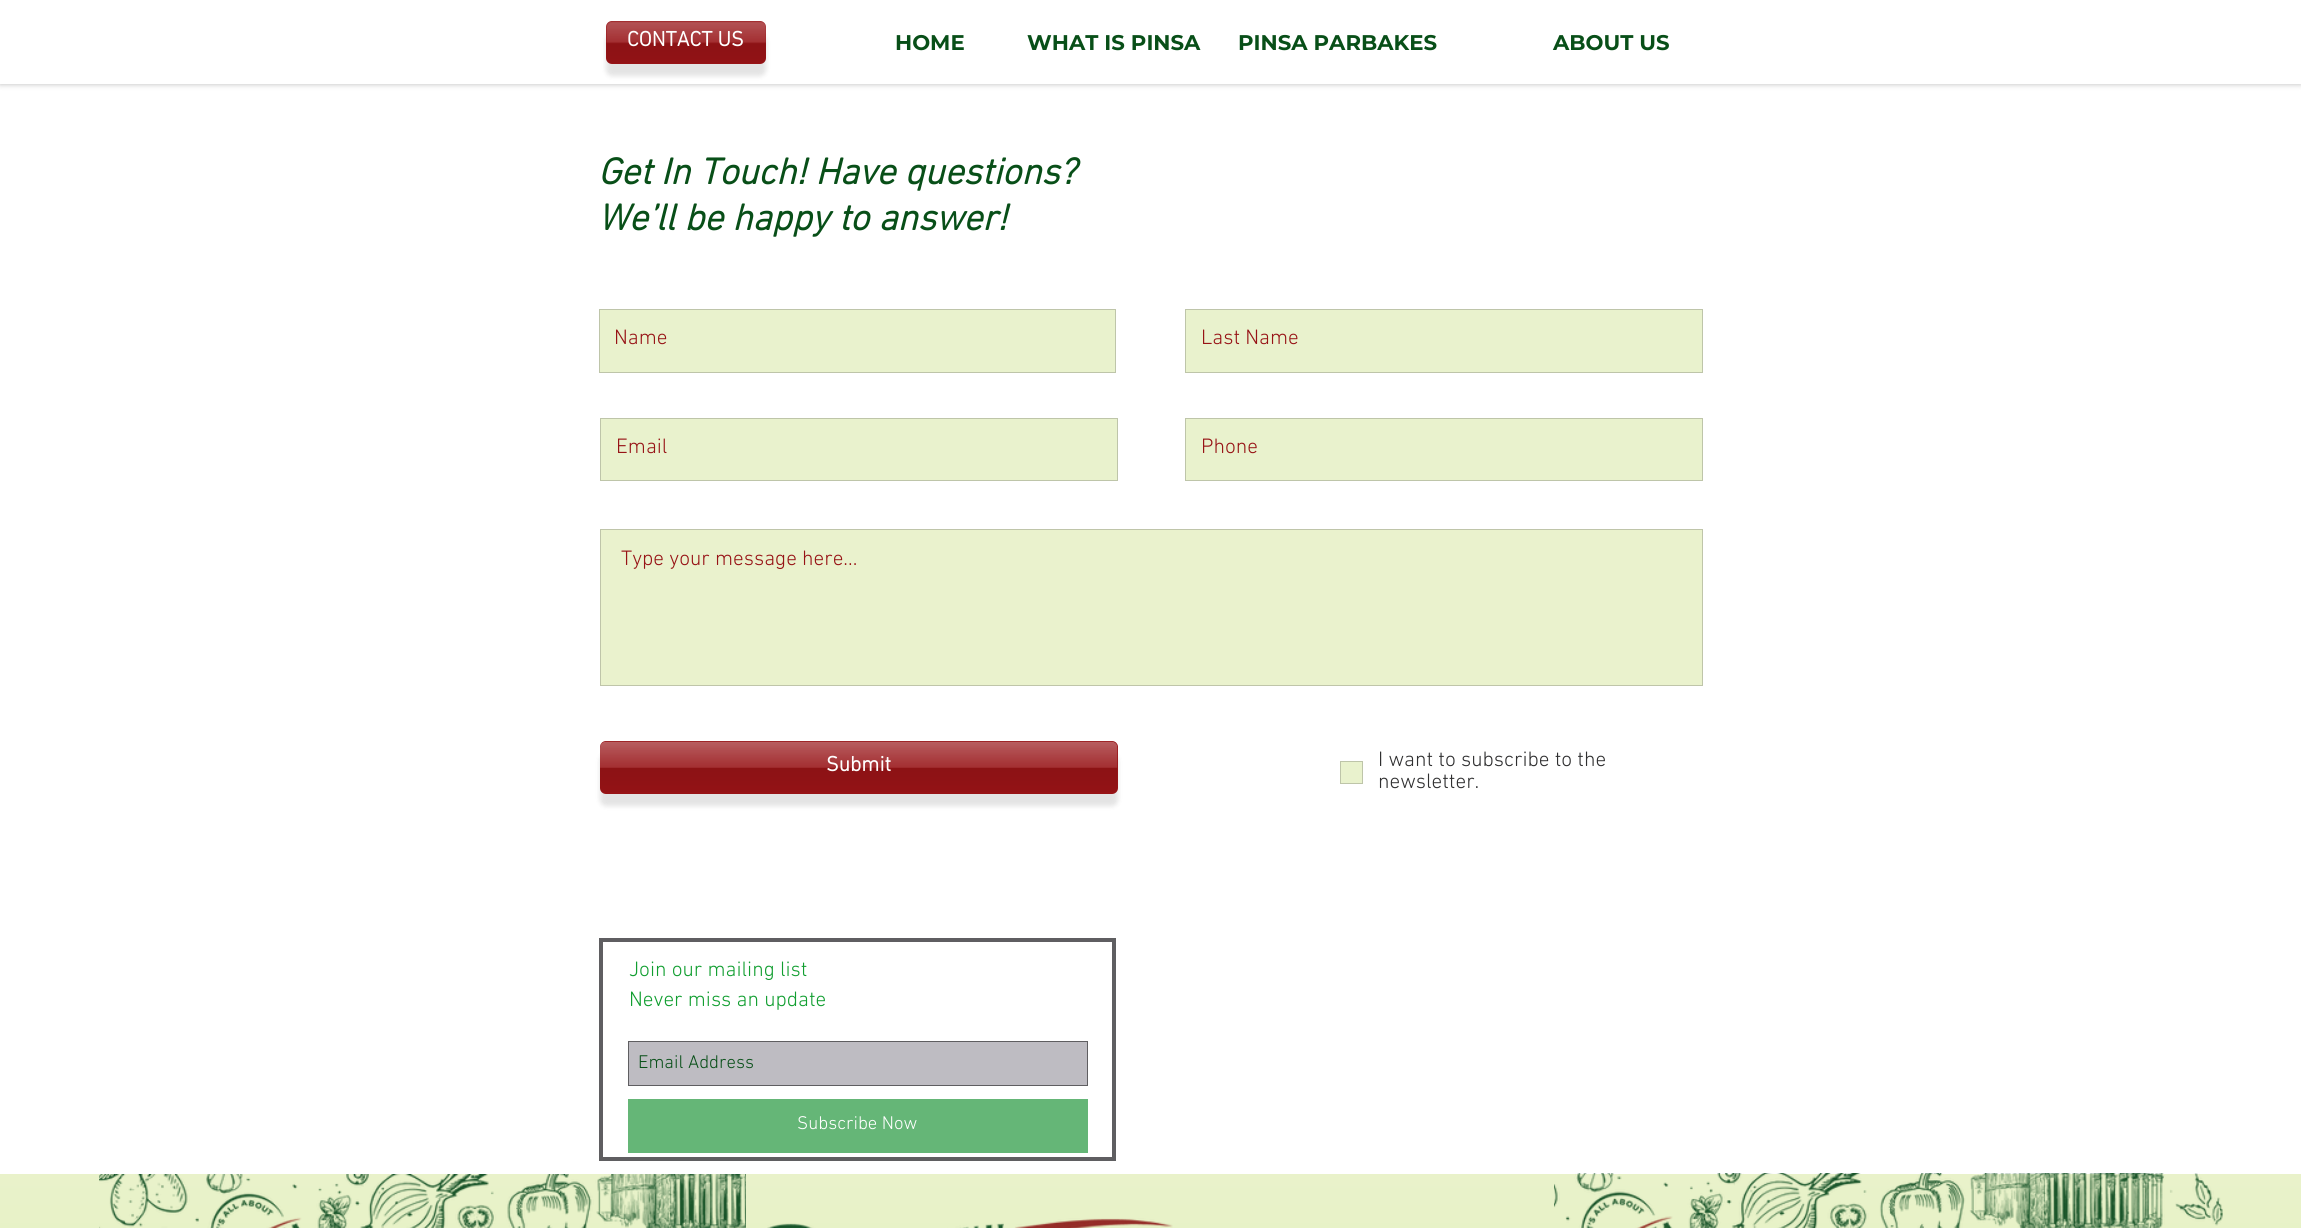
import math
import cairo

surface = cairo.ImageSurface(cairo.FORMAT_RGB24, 2301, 1228)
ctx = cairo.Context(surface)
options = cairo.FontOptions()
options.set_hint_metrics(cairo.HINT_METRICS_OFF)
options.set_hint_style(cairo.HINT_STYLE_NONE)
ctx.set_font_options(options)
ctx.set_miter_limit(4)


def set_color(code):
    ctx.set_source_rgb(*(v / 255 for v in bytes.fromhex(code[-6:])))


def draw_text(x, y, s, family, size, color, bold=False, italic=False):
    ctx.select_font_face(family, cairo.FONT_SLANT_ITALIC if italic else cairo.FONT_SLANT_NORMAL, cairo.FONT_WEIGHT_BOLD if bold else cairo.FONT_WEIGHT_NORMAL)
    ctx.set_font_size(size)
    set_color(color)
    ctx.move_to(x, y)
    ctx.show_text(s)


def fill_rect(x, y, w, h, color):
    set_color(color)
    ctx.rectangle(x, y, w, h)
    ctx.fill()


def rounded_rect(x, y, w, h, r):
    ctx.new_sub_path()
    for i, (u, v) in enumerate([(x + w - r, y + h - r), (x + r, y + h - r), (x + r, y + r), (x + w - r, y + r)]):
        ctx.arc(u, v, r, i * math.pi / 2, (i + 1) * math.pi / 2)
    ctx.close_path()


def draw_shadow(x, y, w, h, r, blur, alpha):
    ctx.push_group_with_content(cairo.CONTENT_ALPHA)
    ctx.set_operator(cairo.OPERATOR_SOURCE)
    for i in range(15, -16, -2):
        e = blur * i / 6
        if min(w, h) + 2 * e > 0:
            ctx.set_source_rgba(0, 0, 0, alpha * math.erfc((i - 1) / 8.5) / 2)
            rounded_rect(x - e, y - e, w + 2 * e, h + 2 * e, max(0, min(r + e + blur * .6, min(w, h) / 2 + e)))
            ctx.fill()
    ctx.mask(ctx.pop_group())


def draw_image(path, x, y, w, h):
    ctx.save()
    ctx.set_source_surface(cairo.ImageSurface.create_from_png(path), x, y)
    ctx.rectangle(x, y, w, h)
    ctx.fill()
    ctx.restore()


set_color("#ffffff")
ctx.paint()
set_color("#000000")
draw_shadow(0, 0, 2301, 84, 0, 3, 0.27)
fill_rect(0, 0, 2301, 84, "#ffffff")
set_color("#000000")
draw_shadow(606, 34, 160, 42, 6, 2.5, 0.11)
set_color("#971316")
rounded_rect(606, 21, 160, 43, 6)
ctx.fill()
draw_image("assets/img1.png", 606, 21, 160, 42)
draw_text(627, 46, "CONTACT US", "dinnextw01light", 21.25, "#ffffff", bold=True)
draw_text(895, 50, "HOME", "Montserrat", 21.25, "#084f18", bold=True)
draw_text(1027, 50, "WHAT IS PINSA", "Montserrat", 21.25, "#084f18", bold=True)
draw_text(1238, 50, "PINSA PARBAKES", "Montserrat", 21.25, "#084f18", bold=True)
draw_text(1553, 50, "ABOUT US", "Montserrat", 21.25, "#084f18", bold=True)
draw_text(598, 184, "Get In Touch! Have questions?", "dinnextw01light", 37.5, "#084f18", bold=True, italic=True)
draw_text(598, 230, "We’ll be happy to answer!", "dinnextw01light", 37.5, "#084f18", bold=True, italic=True)
set_color("#e9f2cd")
ctx.rectangle(599.5, 309.5, 516, 63)
ctx.fill_preserve()
set_color("#bec5a9")
ctx.set_line_width(1)
ctx.stroke()
draw_text(614, 344, "Name", "dinnextw01light Light", 21.25, "#971316")
set_color("#e9f2cd")
ctx.rectangle(1185.5, 309.5, 517, 63)
ctx.fill_preserve()
set_color("#bec5a9")
ctx.stroke()
draw_text(1201, 344, "Last Name", "dinnextw01light Light", 21.25, "#971316")
set_color("#e9f2cd")
ctx.rectangle(600.5, 418.5, 517, 62)
ctx.fill_preserve()
set_color("#bec5a9")
ctx.stroke()
draw_text(616, 453, "Email", "dinnextw01light Light", 21.25, "#971316")
set_color("#e9f2cd")
ctx.rectangle(1185.5, 418.5, 517, 62)
ctx.fill_preserve()
set_color("#bec5a9")
ctx.stroke()
draw_text(1201, 453, "Phone", "dinnextw01light Light", 21.25, "#971316")
set_color("#eaf2cd")
ctx.rectangle(600.5, 529.5, 1102, 156)
ctx.fill_preserve()
set_color("#bfc5a9")
ctx.stroke()
draw_text(621, 565, "Type your message here...", "dinnextw01light Light", 21.25, "#971316")
set_color("#000000")
draw_shadow(600, 754, 518, 52, 6, 2.5, 0.11)
set_color("#971316")
rounded_rect(600, 741, 518, 53, 6)
ctx.fill()
draw_image("assets/img2.png", 600, 741, 518, 51)
draw_text(826, 771, "Submit", "dinnextw01light", 21.25, "#ffffff", bold=True)
set_color("#e9f2cd")
ctx.rectangle(1340.5, 761.5, 22, 22)
ctx.fill_preserve()
set_color("#bec5a9")
ctx.stroke()
draw_text(1378, 766, "I want to subscribe to the", "dinnextw01light Light", 21.25, "#2f2f30")
draw_text(1378, 788, "newsletter.", "dinnextw01light Light", 21.25, "#2f2f30")
ctx.rectangle(601, 940, 513, 219)
set_color("#5f5e61")
ctx.set_line_width(4)
ctx.stroke()
draw_text(629, 976, "Join our mailing list", "dinnextw01light Light", 21.25, "#119e30")
draw_text(629, 1006, "Never miss an update", "dinnextw01light Light", 21.25, "#119e30")
set_color("#bebcc2")
ctx.rectangle(628.5, 1041.5, 459, 44)
ctx.fill_preserve()
set_color("#5f5e61")
ctx.set_line_width(1)
ctx.stroke()
draw_text(638, 1068, "Email Address", "dinnextw01light Light", 18.75, "#084f18")
fill_rect(628, 1099, 460, 54, "#65b677")
draw_text(797, 1129, "Subscribe Now", "dinnextw01light Light", 18.75, "#ffffff")
fill_rect(0, 1174, 2301, 54, "#e1eeb8")
draw_image("assets/img6.png", 0, 1174, 2301, 54)
draw_image("assets/img3.png", 99, 1174, 647, 54)
draw_image("assets/img4.png", 767, 1218, 406, 10)
draw_image("assets/img5.png", 1554, 1173, 669, 55)
surface.write_to_png("output.png")
